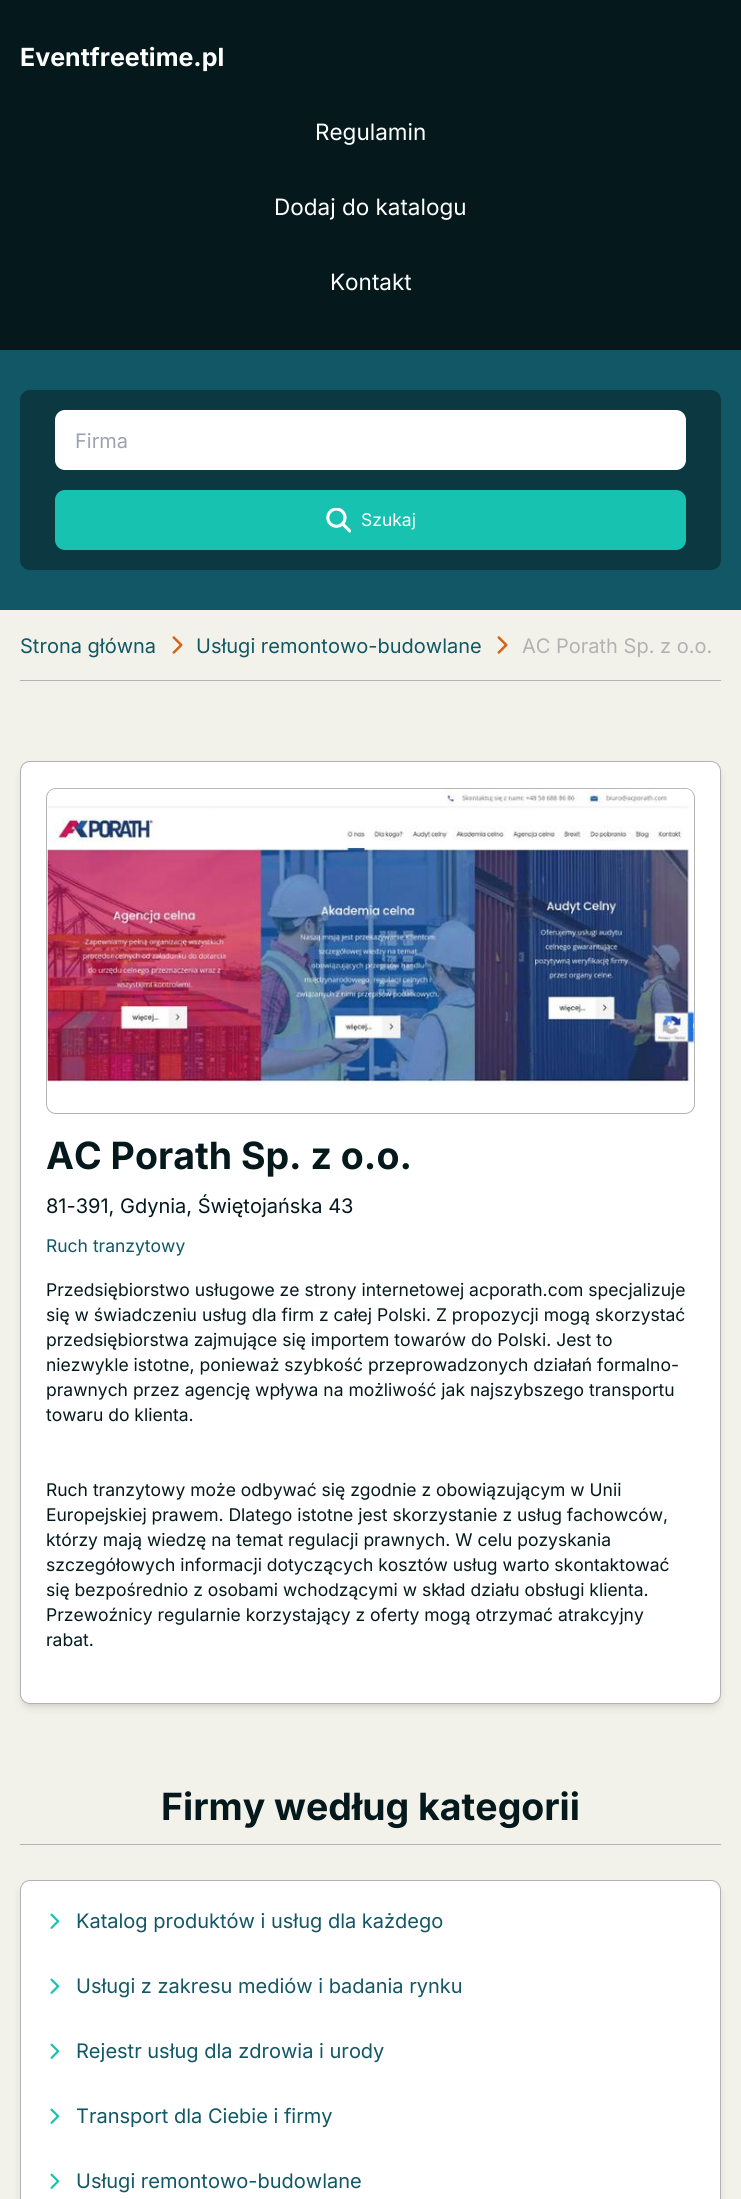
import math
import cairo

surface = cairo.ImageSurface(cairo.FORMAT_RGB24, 741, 2199)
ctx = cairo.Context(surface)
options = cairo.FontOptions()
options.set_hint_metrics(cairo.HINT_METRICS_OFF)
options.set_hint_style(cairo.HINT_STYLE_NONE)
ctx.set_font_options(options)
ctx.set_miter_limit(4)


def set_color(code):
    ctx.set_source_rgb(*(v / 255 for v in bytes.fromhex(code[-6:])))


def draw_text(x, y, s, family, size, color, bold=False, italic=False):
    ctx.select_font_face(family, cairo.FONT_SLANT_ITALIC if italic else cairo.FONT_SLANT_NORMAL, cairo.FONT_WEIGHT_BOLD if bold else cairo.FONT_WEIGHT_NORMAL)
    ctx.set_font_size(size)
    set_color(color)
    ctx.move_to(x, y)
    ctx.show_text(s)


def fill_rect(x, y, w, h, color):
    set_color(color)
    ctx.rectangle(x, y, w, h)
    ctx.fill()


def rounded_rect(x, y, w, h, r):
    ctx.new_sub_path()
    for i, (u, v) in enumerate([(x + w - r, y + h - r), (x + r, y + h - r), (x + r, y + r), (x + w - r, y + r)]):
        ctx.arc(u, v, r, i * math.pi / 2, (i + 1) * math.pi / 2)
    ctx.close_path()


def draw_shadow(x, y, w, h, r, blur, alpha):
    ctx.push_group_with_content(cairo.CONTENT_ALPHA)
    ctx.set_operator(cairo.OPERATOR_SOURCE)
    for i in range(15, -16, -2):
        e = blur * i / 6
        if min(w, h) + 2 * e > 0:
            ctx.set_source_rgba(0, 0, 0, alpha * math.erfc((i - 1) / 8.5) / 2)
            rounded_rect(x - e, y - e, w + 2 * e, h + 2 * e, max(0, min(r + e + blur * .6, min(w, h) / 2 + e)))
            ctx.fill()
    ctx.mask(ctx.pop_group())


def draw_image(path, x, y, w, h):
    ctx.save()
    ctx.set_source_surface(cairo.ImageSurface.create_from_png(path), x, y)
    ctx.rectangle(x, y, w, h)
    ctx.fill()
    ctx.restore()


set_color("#f3f2ea")
ctx.paint()
fill_rect(0, 0, 741, 350, "#05191d")
draw_text(20, 66, "Eventfreetime.pl", "Inter", 25, "#ffffff", bold=True)
draw_text(315, 140, "Regulamin", "Inter", 22.5, "#ffffff")
draw_text(274, 215, "Dodaj do katalogu", "Inter", 22.5, "#ffffff")
draw_text(330, 290, "Kontakt", "Inter", 22.5, "#ffffff")
fill_rect(0, 350, 741, 260, "#115765")
set_color("#0b3841")
rounded_rect(20, 390, 701, 180, 10)
ctx.fill()
set_color("#ffffff")
rounded_rect(55, 410, 631, 60, 10)
ctx.fill()
draw_text(75, 448, "Firma", "Inter", 20, "#9ca3af")
set_color("#17c2b1")
rounded_rect(55, 490, 631, 60, 10)
ctx.fill()
draw_image("assets/img1.png", 326, 508, 25, 25)
draw_text(361, 526, "Szukaj", "Inter", 17.5, "#ffffff")
fill_rect(20, 680, 701, 1, "#b2b2b2")
draw_text(20, 653, "Strona główna", "Inter", 20, "#115765")
draw_image("assets/img2.png", 172, 636, 11, 18)
draw_text(196, 653, "Usługi remontowo-budowlane", "Inter", 20, "#115765")
draw_image("assets/img2.png", 497, 636, 11, 18)
draw_text(522, 653, "AC Porath Sp. z o.o.", "Inter", 20, "#b2b2b2")
set_color("#000000")
draw_shadow(23, 766, 696, 938, 8, 2.5, 0.1)
draw_shadow(21, 768, 699, 940, 9, 4, 0.1)
set_color("#ffffff")
rounded_rect(20.5, 761.5, 700, 942, 9.5)
ctx.fill_preserve()
set_color("#b2b2b2")
ctx.set_line_width(1)
ctx.stroke()
rounded_rect(46.5, 788.5, 648, 325, 9.5)
ctx.stroke()
draw_image("assets/img3.png", 47, 788, 647, 319)
draw_text(46, 1169, "AC Porath Sp. z o.o.", "Inter", 37.5, "#05191d", bold=True)
draw_text(46, 1213, "81-391, Gdynia, Świętojańska 43", "Inter", 20, "#05191d")
draw_text(46, 1252, "Ruch tranzytowy", "Inter", 17.5, "#115765")
draw_text(46, 1296, "Przedsiębiorstwo usługowe ze strony internetowej acporath.com specjalizuje", "Inter", 17.5, "#05191d")
draw_text(46, 1321, "się w świadczeniu usług dla firm z całej Polski. Z propozycji mogą skorzystać", "Inter", 17.5, "#05191d")
draw_text(46, 1346, "przedsiębiorstwa zajmujące się importem towarów do Polski. Jest to", "Inter", 17.5, "#05191d")
draw_text(46, 1371, "niezwykle istotne, ponieważ szybkość przeprowadzonych działań formalno-", "Inter", 17.5, "#05191d")
draw_text(46, 1396, "prawnych przez agencję wpływa na możliwość jak najszybszego transportu", "Inter", 17.5, "#05191d")
draw_text(46, 1421, "towaru do klienta.", "Inter", 17.5, "#05191d")
draw_text(46, 1496, "Ruch tranzytowy może odbywać się zgodnie z obowiązującym w Unii", "Inter", 17.5, "#05191d")
draw_text(46, 1521, "Europejskiej prawem. Dlatego istotne jest skorzystanie z usług fachowców,", "Inter", 17.5, "#05191d")
draw_text(46, 1546, "którzy mają wiedzę na temat regulacji prawnych. W celu pozyskania", "Inter", 17.5, "#05191d")
draw_text(46, 1571, "szczegółowych informacji dotyczących kosztów usług warto skontaktować", "Inter", 17.5, "#05191d")
draw_text(46, 1596, "się bezpośrednio z osobami wchodzącymi w skład działu obsługi klienta.", "Inter", 17.5, "#05191d")
draw_text(46, 1621, "Przewoźnicy regularnie korzystający z oferty mogą otrzymać atrakcyjny", "Inter", 17.5, "#05191d")
draw_text(46, 1646, "rabat.", "Inter", 17.5, "#05191d")
fill_rect(20, 1844, 701, 1, "#b2b2b2")
draw_text(161, 1820, "Firmy według kategorii", "Inter", 37.5, "#05191d", bold=True)
set_color("#000000")
draw_shadow(21, 1886, 699, 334, 9, 4, 0.1)
set_color("#ffffff")
rounded_rect(20.5, 1880.5, 700, 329, 9.5)
ctx.fill_preserve()
set_color("#b2b2b2")
ctx.stroke()
draw_image("assets/img4.png", 50, 1913, 10, 16)
draw_text(76, 1928, "Katalog produktów i usług dla każdego", "Inter", 20, "#115765")
draw_image("assets/img4.png", 50, 1978, 10, 16)
draw_text(76, 1993, "Usługi z zakresu mediów i badania rynku", "Inter", 20, "#115765")
draw_image("assets/img4.png", 50, 2043, 10, 16)
draw_text(76, 2058, "Rejestr usług dla zdrowia i urody", "Inter", 20, "#115765")
draw_image("assets/img4.png", 50, 2108, 10, 16)
draw_text(76, 2123, "Transport dla Ciebie i firmy", "Inter", 20, "#115765")
draw_image("assets/img4.png", 50, 2173, 10, 16)
draw_text(76, 2188, "Usługi remontowo-budowlane", "Inter", 20, "#115765")
surface.write_to_png("output.png")
